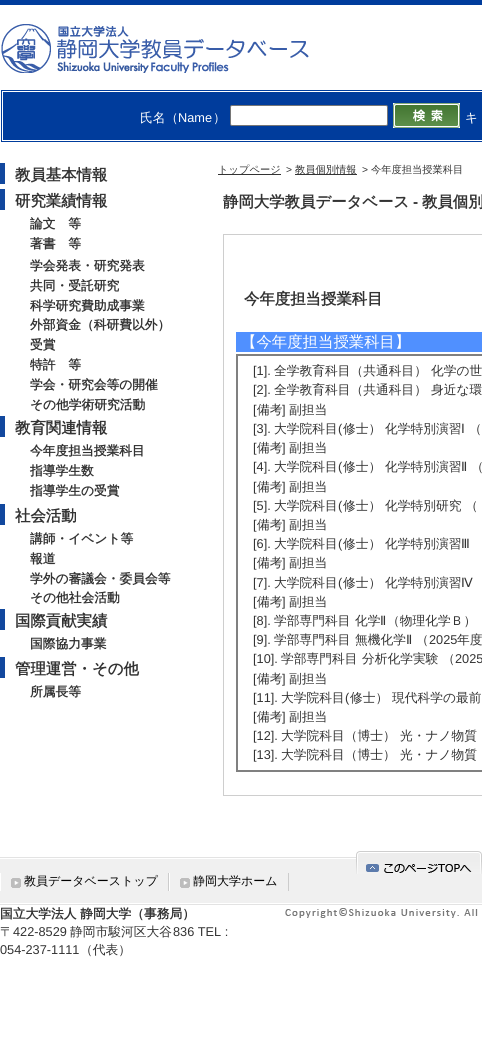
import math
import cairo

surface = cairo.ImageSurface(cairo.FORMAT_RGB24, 482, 1060)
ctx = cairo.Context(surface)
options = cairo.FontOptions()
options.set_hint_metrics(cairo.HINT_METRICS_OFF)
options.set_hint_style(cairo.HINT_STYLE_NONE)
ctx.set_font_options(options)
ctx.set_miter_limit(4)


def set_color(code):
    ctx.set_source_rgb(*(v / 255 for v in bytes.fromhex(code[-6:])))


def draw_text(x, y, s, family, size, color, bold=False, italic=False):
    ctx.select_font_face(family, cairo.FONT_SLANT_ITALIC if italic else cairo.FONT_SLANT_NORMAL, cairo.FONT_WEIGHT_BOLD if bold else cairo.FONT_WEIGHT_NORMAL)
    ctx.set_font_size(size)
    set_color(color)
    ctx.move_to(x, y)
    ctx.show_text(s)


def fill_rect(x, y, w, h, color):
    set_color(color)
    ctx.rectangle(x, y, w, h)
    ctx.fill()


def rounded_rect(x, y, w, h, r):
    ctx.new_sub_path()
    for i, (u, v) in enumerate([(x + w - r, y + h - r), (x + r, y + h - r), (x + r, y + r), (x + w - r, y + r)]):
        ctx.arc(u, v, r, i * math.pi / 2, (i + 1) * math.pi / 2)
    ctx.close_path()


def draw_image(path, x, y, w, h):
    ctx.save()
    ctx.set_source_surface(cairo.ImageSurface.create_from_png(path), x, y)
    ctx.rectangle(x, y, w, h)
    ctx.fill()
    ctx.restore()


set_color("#ffffff")
ctx.paint()
fill_rect(0, 0, 482, 5, "#003c9c")
draw_image("assets/img1.png", 1, 24, 308, 49)
fill_rect(1, 90, 481, 52, "#003c9c")
ctx.rectangle(2.5, 91.5, 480, 49)
set_color("#ffffff")
ctx.set_line_width(1)
ctx.stroke()
draw_text(140, 122, "氏名（", "WenQuanYi Zen Hei Medium", 12.75, "#ffffff")
draw_text(178, 122, "Name", "Liberation Sans", 12.75, "#ffffff")
draw_text(213, 122, "）", "WenQuanYi Zen Hei Medium", 12.75, "#ffffff")
rounded_rect(230.5, 105.5, 157, 20, 1.5)
ctx.fill_preserve()
set_color("#767676")
ctx.stroke()
draw_image("assets/img2.png", 393, 103, 67, 25)
draw_text(465, 122, "キ", "WenQuanYi Zen Hei Medium", 12.75, "#ffffff")
fill_rect(0, 163, 5, 21, "#12489e")
draw_text(15, 180, "教員基本情報", "WenQuanYi Zen Hei", 15.4, "#333333", bold=True)
fill_rect(0, 189, 5, 21, "#12489e")
draw_text(15, 206, "研究業績情報", "WenQuanYi Zen Hei", 15.4, "#333333", bold=True)
draw_text(30, 228, "論文　等", "WenQuanYi Zen Hei", 12.75, "#333333", bold=True)
draw_text(30, 248, "著書　等", "WenQuanYi Zen Hei", 12.75, "#333333", bold=True)
draw_text(30, 270, "学会発表・研究発表", "WenQuanYi Zen Hei", 12.75, "#333333", bold=True)
draw_text(30, 290, "共同・受託研究", "WenQuanYi Zen Hei", 12.75, "#333333", bold=True)
draw_text(30, 310, "科学研究費助成事業", "WenQuanYi Zen Hei", 12.75, "#333333", bold=True)
draw_text(30, 329, "外部資金（科研費以外）", "WenQuanYi Zen Hei", 12.75, "#333333", bold=True)
draw_text(30, 349, "受賞", "WenQuanYi Zen Hei", 12.75, "#333333", bold=True)
draw_text(30, 369, "特許　等", "WenQuanYi Zen Hei", 12.75, "#333333", bold=True)
draw_text(30, 389, "学会・研究会等の開催", "WenQuanYi Zen Hei", 12.75, "#333333", bold=True)
draw_text(30, 409, "その他学術研究活動", "WenQuanYi Zen Hei", 12.75, "#333333", bold=True)
fill_rect(0, 416, 5, 21, "#12489e")
draw_text(15, 433, "教育関連情報", "WenQuanYi Zen Hei", 15.4, "#333333", bold=True)
draw_text(30, 455, "今年度担当授業科目", "WenQuanYi Zen Hei", 12.75, "#333333", bold=True)
draw_text(30, 475, "指導学生数", "WenQuanYi Zen Hei", 12.75, "#333333", bold=True)
draw_text(30, 495, "指導学生の受賞", "WenQuanYi Zen Hei", 12.75, "#333333", bold=True)
fill_rect(0, 504, 5, 21, "#12489e")
draw_text(15, 521, "社会活動", "WenQuanYi Zen Hei", 15.4, "#333333", bold=True)
draw_text(30, 543, "講師・イベント等", "WenQuanYi Zen Hei", 12.75, "#333333", bold=True)
draw_text(30, 563, "報道", "WenQuanYi Zen Hei", 12.75, "#333333", bold=True)
draw_text(30, 583, "学外の審議会・委員会等", "WenQuanYi Zen Hei", 12.75, "#333333", bold=True)
draw_text(30, 602, "その他社会活動", "WenQuanYi Zen Hei", 12.75, "#333333", bold=True)
fill_rect(0, 609, 5, 21, "#12489e")
draw_text(15, 626, "国際貢献実績", "WenQuanYi Zen Hei", 15.4, "#333333", bold=True)
draw_text(30, 648, "国際協力事業", "WenQuanYi Zen Hei", 12.75, "#333333", bold=True)
fill_rect(0, 657, 5, 21, "#12489e")
draw_text(15, 674, "管理運営・その他", "WenQuanYi Zen Hei", 15.4, "#333333", bold=True)
draw_text(30, 696, "所属長等", "WenQuanYi Zen Hei", 12.75, "#333333", bold=True)
fill_rect(218, 174, 63, 1, "#333333")
draw_text(218, 173, "トップページ", "WenQuanYi Zen Hei Medium", 10.25, "#333333")
draw_text(286, 173, ">", "Liberation Sans", 10.25, "#333333")
fill_rect(295, 174, 62, 1, "#333333")
draw_text(295, 173, "教員個別情報", "WenQuanYi Zen Hei Medium", 10.25, "#333333")
draw_text(362, 173, ">", "Liberation Sans", 10.25, "#333333")
draw_text(371, 173, "今年度担当授業科目", "WenQuanYi Zen Hei Medium", 10.25, "#333333")
draw_text(223, 207, "静岡大学教員データベース", "WenQuanYi Zen Hei", 15.4, "#333333", bold=True)
draw_text(413, 207, "-", "Liberation Sans", 15.4, "#333333", bold=True)
draw_text(422, 207, "教員個別", "WenQuanYi Zen Hei", 15.4, "#333333", bold=True)
ctx.rectangle(223.5, 234.5, 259, 561)
set_color("#cecece")
ctx.stroke()
draw_text(244, 304, "今年度担当授業科目", "WenQuanYi Zen Hei", 15.4, "#333333", bold=True)
fill_rect(236, 332, 246, 20, "#5090ff")
draw_text(241, 347, "【今年度担当授業科目】", "WenQuanYi Zen Hei Medium", 15.4, "#ffffff")
ctx.rectangle(237, 355, 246, 416)
set_color("#808080")
ctx.set_line_width(2)
ctx.stroke()
draw_text(253, 375, "[1].", "Liberation Sans", 12.75, "#333333")
draw_text(274, 375, "全学教育科目（共通科目）", "WenQuanYi Zen Hei Medium", 12.75, "#333333")
draw_text(431, 375, "化学の世", "WenQuanYi Zen Hei Medium", 12.75, "#333333")
draw_text(253, 394, "[2].", "Liberation Sans", 12.75, "#333333")
draw_text(274, 394, "全学教育科目（共通科目）", "WenQuanYi Zen Hei Medium", 12.75, "#333333")
draw_text(431, 394, "身近な環", "WenQuanYi Zen Hei Medium", 12.75, "#333333")
draw_text(253, 414, "[", "Liberation Sans", 12.75, "#333333")
draw_text(257, 414, "備考", "WenQuanYi Zen Hei Medium", 12.75, "#333333")
draw_text(282, 414, "]", "Liberation Sans", 12.75, "#333333")
draw_text(289, 414, "副担当", "WenQuanYi Zen Hei Medium", 12.75, "#333333")
draw_text(253, 433, "[3].", "Liberation Sans", 12.75, "#333333")
draw_text(274, 433, "大学院科目", "WenQuanYi Zen Hei Medium", 12.75, "#333333")
draw_text(338, 433, "(", "Liberation Sans", 12.75, "#333333")
draw_text(343, 433, "修士）", "WenQuanYi Zen Hei Medium", 12.75, "#333333")
draw_text(385, 433, "化学特別演習", "WenQuanYi Zen Hei Medium", 12.75, "#333333")
draw_text(461, 433, "Ⅰ", "DejaVu Sans", 12.75, "#333333")
draw_text(469, 433, "（", "WenQuanYi Zen Hei Medium", 12.75, "#333333")
draw_text(253, 452, "[", "Liberation Sans", 12.75, "#333333")
draw_text(257, 452, "備考", "WenQuanYi Zen Hei Medium", 12.75, "#333333")
draw_text(282, 452, "]", "Liberation Sans", 12.75, "#333333")
draw_text(289, 452, "副担当", "WenQuanYi Zen Hei Medium", 12.75, "#333333")
draw_text(253, 471, "[4].", "Liberation Sans", 12.75, "#333333")
draw_text(274, 471, "大学院科目", "WenQuanYi Zen Hei Medium", 12.75, "#333333")
draw_text(338, 471, "(", "Liberation Sans", 12.75, "#333333")
draw_text(343, 471, "修士）", "WenQuanYi Zen Hei Medium", 12.75, "#333333")
draw_text(385, 471, "化学特別演習", "WenQuanYi Zen Hei Medium", 12.75, "#333333")
draw_text(461, 471, "Ⅱ", "DejaVu Sans", 12.75, "#333333")
draw_text(471, 471, "（", "WenQuanYi Zen Hei Medium", 12.75, "#333333")
draw_text(253, 491, "[", "Liberation Sans", 12.75, "#333333")
draw_text(257, 491, "備考", "WenQuanYi Zen Hei Medium", 12.75, "#333333")
draw_text(282, 491, "]", "Liberation Sans", 12.75, "#333333")
draw_text(289, 491, "副担当", "WenQuanYi Zen Hei Medium", 12.75, "#333333")
draw_text(253, 510, "[5].", "Liberation Sans", 12.75, "#333333")
draw_text(274, 510, "大学院科目", "WenQuanYi Zen Hei Medium", 12.75, "#333333")
draw_text(338, 510, "(", "Liberation Sans", 12.75, "#333333")
draw_text(343, 510, "修士）", "WenQuanYi Zen Hei Medium", 12.75, "#333333")
draw_text(385, 510, "化学特別研究 （", "WenQuanYi Zen Hei Medium", 12.75, "#333333")
draw_text(253, 529, "[", "Liberation Sans", 12.75, "#333333")
draw_text(257, 529, "備考", "WenQuanYi Zen Hei Medium", 12.75, "#333333")
draw_text(282, 529, "]", "Liberation Sans", 12.75, "#333333")
draw_text(289, 529, "副担当", "WenQuanYi Zen Hei Medium", 12.75, "#333333")
draw_text(253, 548, "[6].", "Liberation Sans", 12.75, "#333333")
draw_text(274, 548, "大学院科目", "WenQuanYi Zen Hei Medium", 12.75, "#333333")
draw_text(338, 548, "(", "Liberation Sans", 12.75, "#333333")
draw_text(343, 548, "修士）", "WenQuanYi Zen Hei Medium", 12.75, "#333333")
draw_text(385, 548, "化学特別演習", "WenQuanYi Zen Hei Medium", 12.75, "#333333")
draw_text(461, 548, "Ⅲ", "DejaVu Sans", 12.75, "#333333")
draw_text(253, 567, "[", "Liberation Sans", 12.75, "#333333")
draw_text(257, 567, "備考", "WenQuanYi Zen Hei Medium", 12.75, "#333333")
draw_text(282, 567, "]", "Liberation Sans", 12.75, "#333333")
draw_text(289, 567, "副担当", "WenQuanYi Zen Hei Medium", 12.75, "#333333")
draw_text(253, 587, "[7].", "Liberation Sans", 12.75, "#333333")
draw_text(274, 587, "大学院科目", "WenQuanYi Zen Hei Medium", 12.75, "#333333")
draw_text(338, 587, "(", "Liberation Sans", 12.75, "#333333")
draw_text(343, 587, "修士）", "WenQuanYi Zen Hei Medium", 12.75, "#333333")
draw_text(385, 587, "化学特別演習", "WenQuanYi Zen Hei Medium", 12.75, "#333333")
draw_text(461, 587, "Ⅳ", "DejaVu Sans", 12.75, "#333333")
draw_text(253, 606, "[", "Liberation Sans", 12.75, "#333333")
draw_text(257, 606, "備考", "WenQuanYi Zen Hei Medium", 12.75, "#333333")
draw_text(282, 606, "]", "Liberation Sans", 12.75, "#333333")
draw_text(289, 606, "副担当", "WenQuanYi Zen Hei Medium", 12.75, "#333333")
draw_text(253, 625, "[8].", "Liberation Sans", 12.75, "#333333")
draw_text(274, 625, "学部専門科目", "WenQuanYi Zen Hei Medium", 12.75, "#333333")
draw_text(355, 625, "化学", "WenQuanYi Zen Hei Medium", 12.75, "#333333")
draw_text(380, 625, "Ⅱ", "DejaVu Sans", 12.75, "#333333")
draw_text(387, 625, "（物理化学Ｂ）", "WenQuanYi Zen Hei Medium", 12.75, "#333333")
draw_text(253, 644, "[9].", "Liberation Sans", 12.75, "#333333")
draw_text(274, 644, "学部専門科目", "WenQuanYi Zen Hei Medium", 12.75, "#333333")
draw_text(355, 644, "無機化学", "WenQuanYi Zen Hei Medium", 12.75, "#333333")
draw_text(406, 644, "Ⅱ", "DejaVu Sans", 12.75, "#333333")
draw_text(416, 644, "（", "WenQuanYi Zen Hei Medium", 12.75, "#333333")
draw_text(429, 644, "2025", "Liberation Sans", 12.75, "#333333")
draw_text(457, 644, "年度", "WenQuanYi Zen Hei Medium", 12.75, "#333333")
draw_text(253, 663, "[10].", "Liberation Sans", 12.75, "#333333")
draw_text(281, 663, "学部専門科目", "WenQuanYi Zen Hei Medium", 12.75, "#333333")
draw_text(362, 663, "分析化学実験 （", "WenQuanYi Zen Hei Medium", 12.75, "#333333")
draw_text(455, 663, "2025", "Liberation Sans", 12.75, "#333333")
draw_text(253, 683, "[", "Liberation Sans", 12.75, "#333333")
draw_text(257, 683, "備考", "WenQuanYi Zen Hei Medium", 12.75, "#333333")
draw_text(282, 683, "]", "Liberation Sans", 12.75, "#333333")
draw_text(289, 683, "副担当", "WenQuanYi Zen Hei Medium", 12.75, "#333333")
draw_text(253, 702, "[11].", "Liberation Sans", 12.75, "#333333")
draw_text(281, 702, "大学院科目", "WenQuanYi Zen Hei Medium", 12.75, "#333333")
draw_text(345, 702, "(", "Liberation Sans", 12.75, "#333333")
draw_text(350, 702, "修士）", "WenQuanYi Zen Hei Medium", 12.75, "#333333")
draw_text(392, 702, "現代科学の最前", "WenQuanYi Zen Hei Medium", 12.75, "#333333")
draw_text(253, 721, "[", "Liberation Sans", 12.75, "#333333")
draw_text(257, 721, "備考", "WenQuanYi Zen Hei Medium", 12.75, "#333333")
draw_text(282, 721, "]", "Liberation Sans", 12.75, "#333333")
draw_text(289, 721, "副担当", "WenQuanYi Zen Hei Medium", 12.75, "#333333")
draw_text(253, 740, "[12].", "Liberation Sans", 12.75, "#333333")
draw_text(281, 740, "大学院科目（博士）", "WenQuanYi Zen Hei Medium", 12.75, "#333333")
draw_text(400, 740, "光・ナノ物質", "WenQuanYi Zen Hei Medium", 12.75, "#333333")
draw_text(253, 759, "[13].", "Liberation Sans", 12.75, "#333333")
draw_text(281, 759, "大学院科目（博士）", "WenQuanYi Zen Hei Medium", 12.75, "#333333")
draw_text(400, 759, "光・ナノ物質", "WenQuanYi Zen Hei Medium", 12.75, "#333333")
draw_image("assets/img3.png", 0, 857, 482, 48)
draw_image("assets/img4.png", 356, 851, 126, 23)
draw_image("assets/img5.png", 11, 878, 10, 10)
fill_rect(168, 873, 1, 18, "#cccccc")
fill_rect(0, 873, 1, 18, "#ffffff")
draw_text(24, 885, "教員データベーストップ", "WenQuanYi Zen Hei Medium", 12, "#000000")
draw_image("assets/img5.png", 180, 878, 10, 10)
fill_rect(288, 873, 1, 18, "#cccccc")
fill_rect(169, 873, 1, 18, "#ffffff")
draw_text(193, 885, "静岡大学ホーム", "WenQuanYi Zen Hei Medium", 12, "#000000")
draw_text(0, 918, "国立大学法人 静岡大学（事務局）", "WenQuanYi Zen Hei", 12.75, "#333333", bold=True)
draw_text(0, 936, "〒", "WenQuanYi Zen Hei Medium", 12.75, "#333333")
draw_text(13, 936, "422-8529", "Liberation Sans", 12.75, "#333333")
draw_text(70, 936, "静岡市駿河区大谷", "WenQuanYi Zen Hei Medium", 12.75, "#333333")
draw_text(173, 936, "836 TEL :", "Liberation Sans", 12.75, "#333333")
draw_text(0, 954, "054-237-1111", "Liberation Sans", 12.75, "#333333")
draw_text(80, 954, "（代表）", "WenQuanYi Zen Hei Medium", 12.75, "#333333")
draw_image("assets/img6.png", 285, 908, 193, 10)
surface.write_to_png("output.png")
